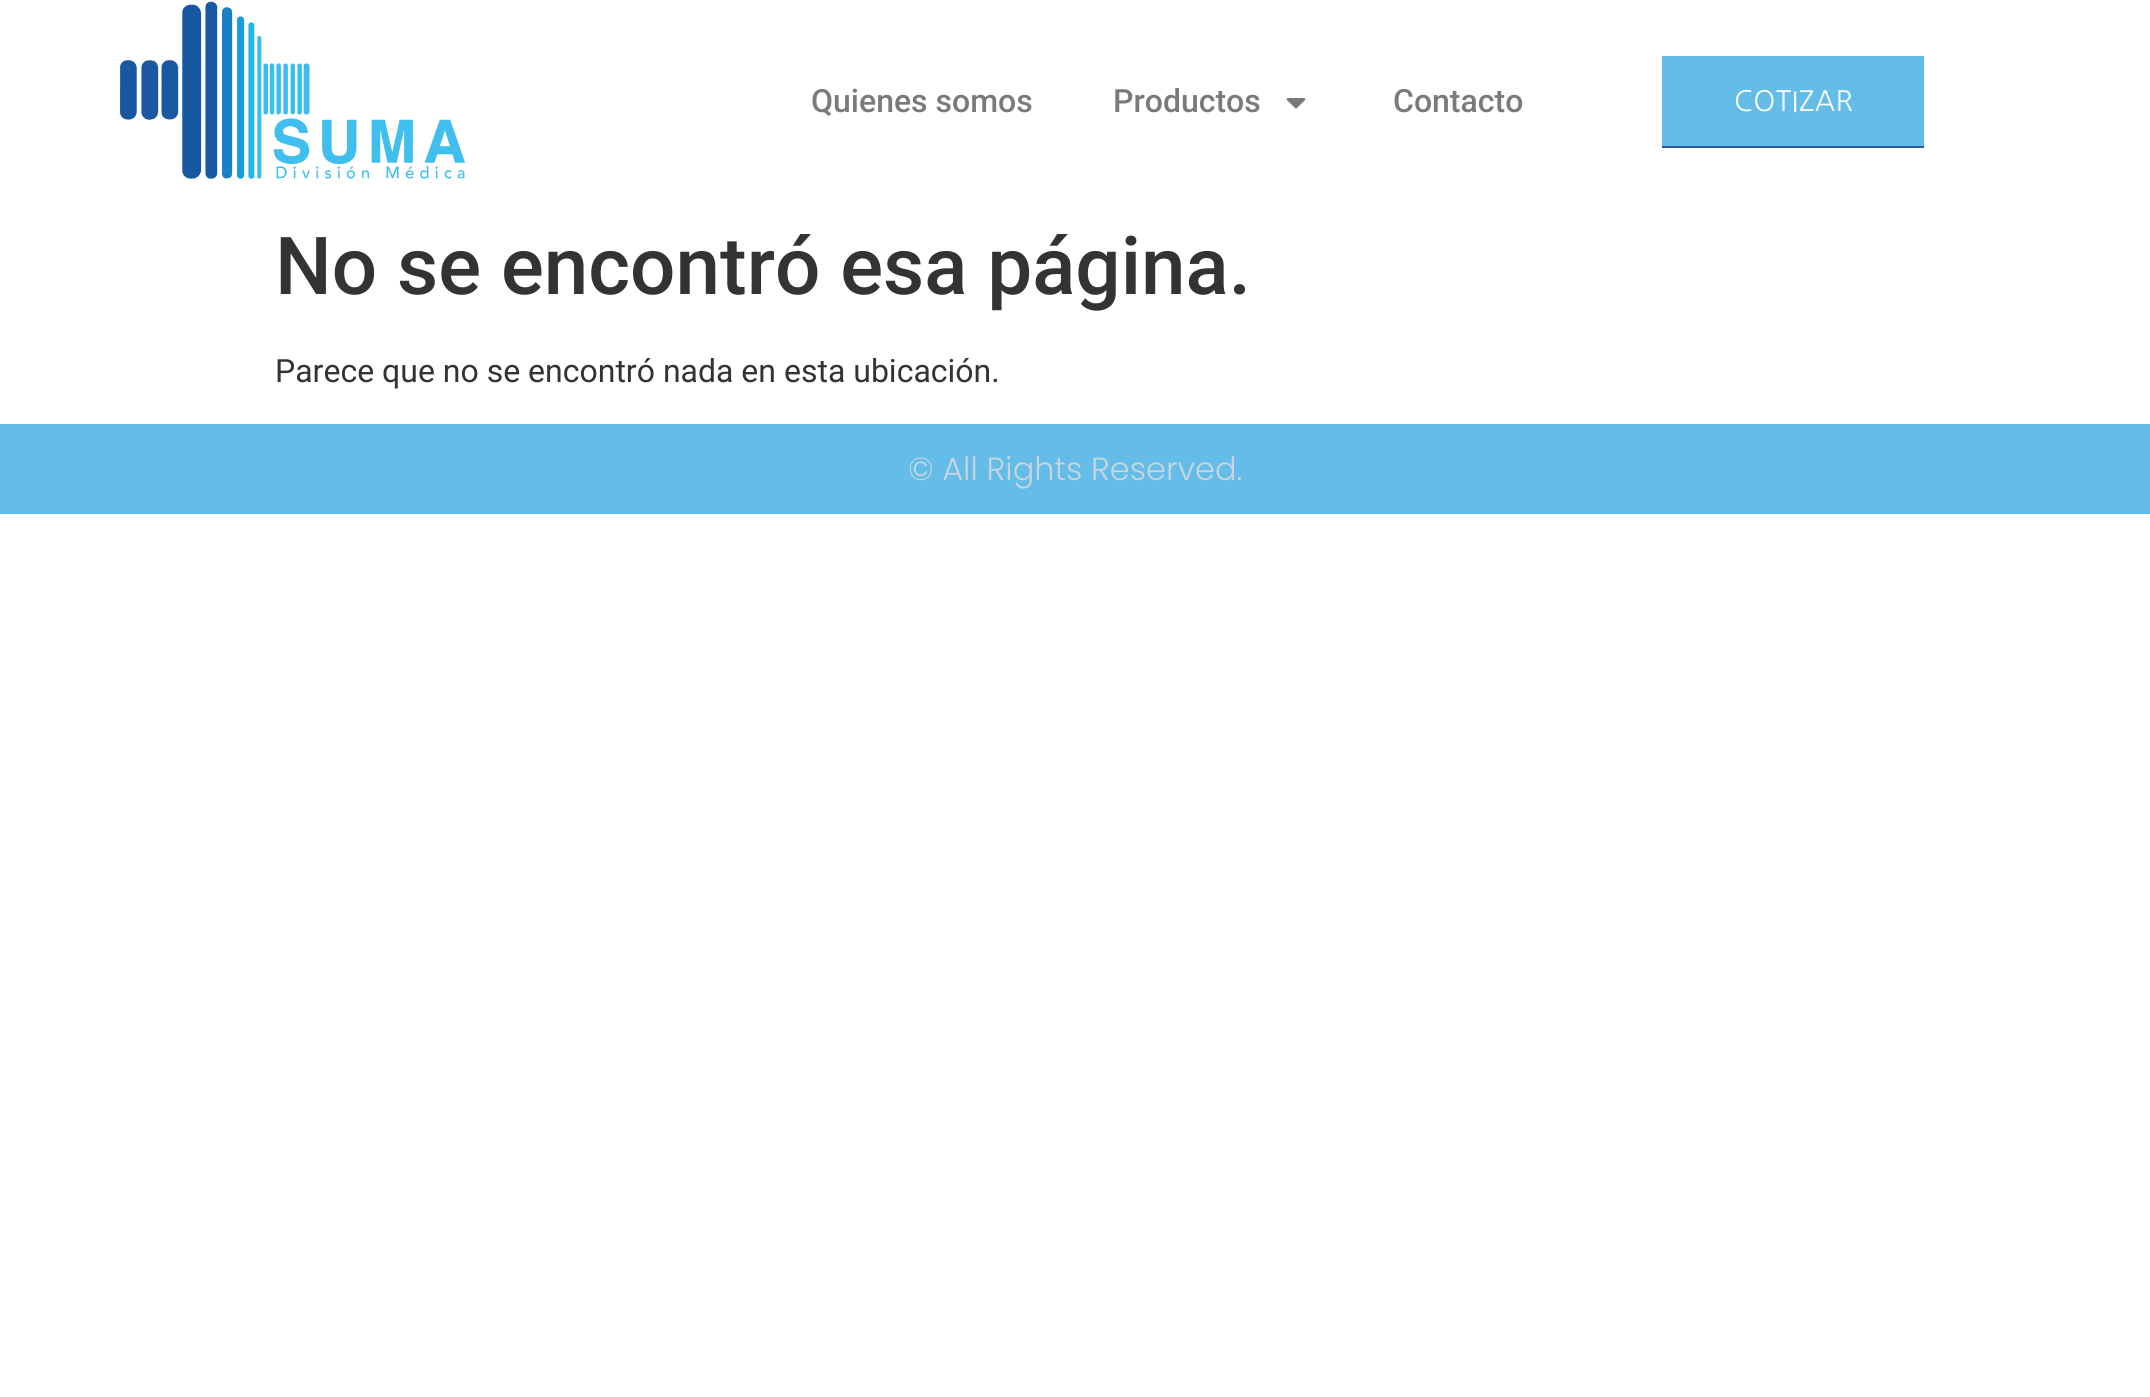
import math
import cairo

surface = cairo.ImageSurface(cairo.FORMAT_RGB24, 2150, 1397)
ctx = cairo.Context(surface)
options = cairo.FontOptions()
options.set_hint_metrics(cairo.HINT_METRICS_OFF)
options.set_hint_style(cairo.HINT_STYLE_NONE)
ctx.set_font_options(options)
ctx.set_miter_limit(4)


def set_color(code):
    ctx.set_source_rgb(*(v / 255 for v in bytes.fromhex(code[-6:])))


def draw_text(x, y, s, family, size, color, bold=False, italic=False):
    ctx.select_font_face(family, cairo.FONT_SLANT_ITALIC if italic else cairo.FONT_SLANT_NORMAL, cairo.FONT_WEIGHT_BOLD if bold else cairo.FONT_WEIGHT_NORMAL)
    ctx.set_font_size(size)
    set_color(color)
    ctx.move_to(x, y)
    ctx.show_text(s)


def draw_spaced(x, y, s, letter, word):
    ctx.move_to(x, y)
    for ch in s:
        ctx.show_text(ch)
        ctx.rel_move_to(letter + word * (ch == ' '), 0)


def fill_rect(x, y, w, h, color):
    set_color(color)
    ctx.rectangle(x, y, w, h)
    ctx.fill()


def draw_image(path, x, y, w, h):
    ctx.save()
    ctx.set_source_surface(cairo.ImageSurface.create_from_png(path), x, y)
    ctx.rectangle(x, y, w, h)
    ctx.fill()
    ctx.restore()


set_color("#ffffff")
ctx.paint()
draw_image("assets/img1.png", 120, 1, 345, 178)
draw_text(811, 112, "Quienes somos", "Roboto Medium", 32, "#7a7a7a")
draw_text(1113, 112, "Productos", "Roboto Medium", 32, "#7a7a7a")
draw_image("assets/img2.png", 1286, 98, 20, 11)
draw_text(1393, 112, "Contacto", "Roboto Medium", 32, "#7a7a7a")
fill_rect(1662, 56, 262, 90, "#64bce8")
fill_rect(1662, 146, 262, 2, "#2a589d")
ctx.select_font_face("NanumGothic")
ctx.set_font_size(28)
set_color("#ffffff")
draw_spaced(1734, 111, "COTIZAR", 0.5, 0)
draw_text(275, 294, "No se encontró esa página.", "Roboto Medium", 80, "#333333")
draw_text(275, 382, "Parece que no se encontró nada en esta ubicación.", "Roboto", 32, "#333333")
fill_rect(0, 424, 2150, 90, "#64bce8")
draw_text(908, 480, "© All Rights Reserved.", "Poppins Light", 32, "#c8d5dc")
surface.write_to_png("output.png")
